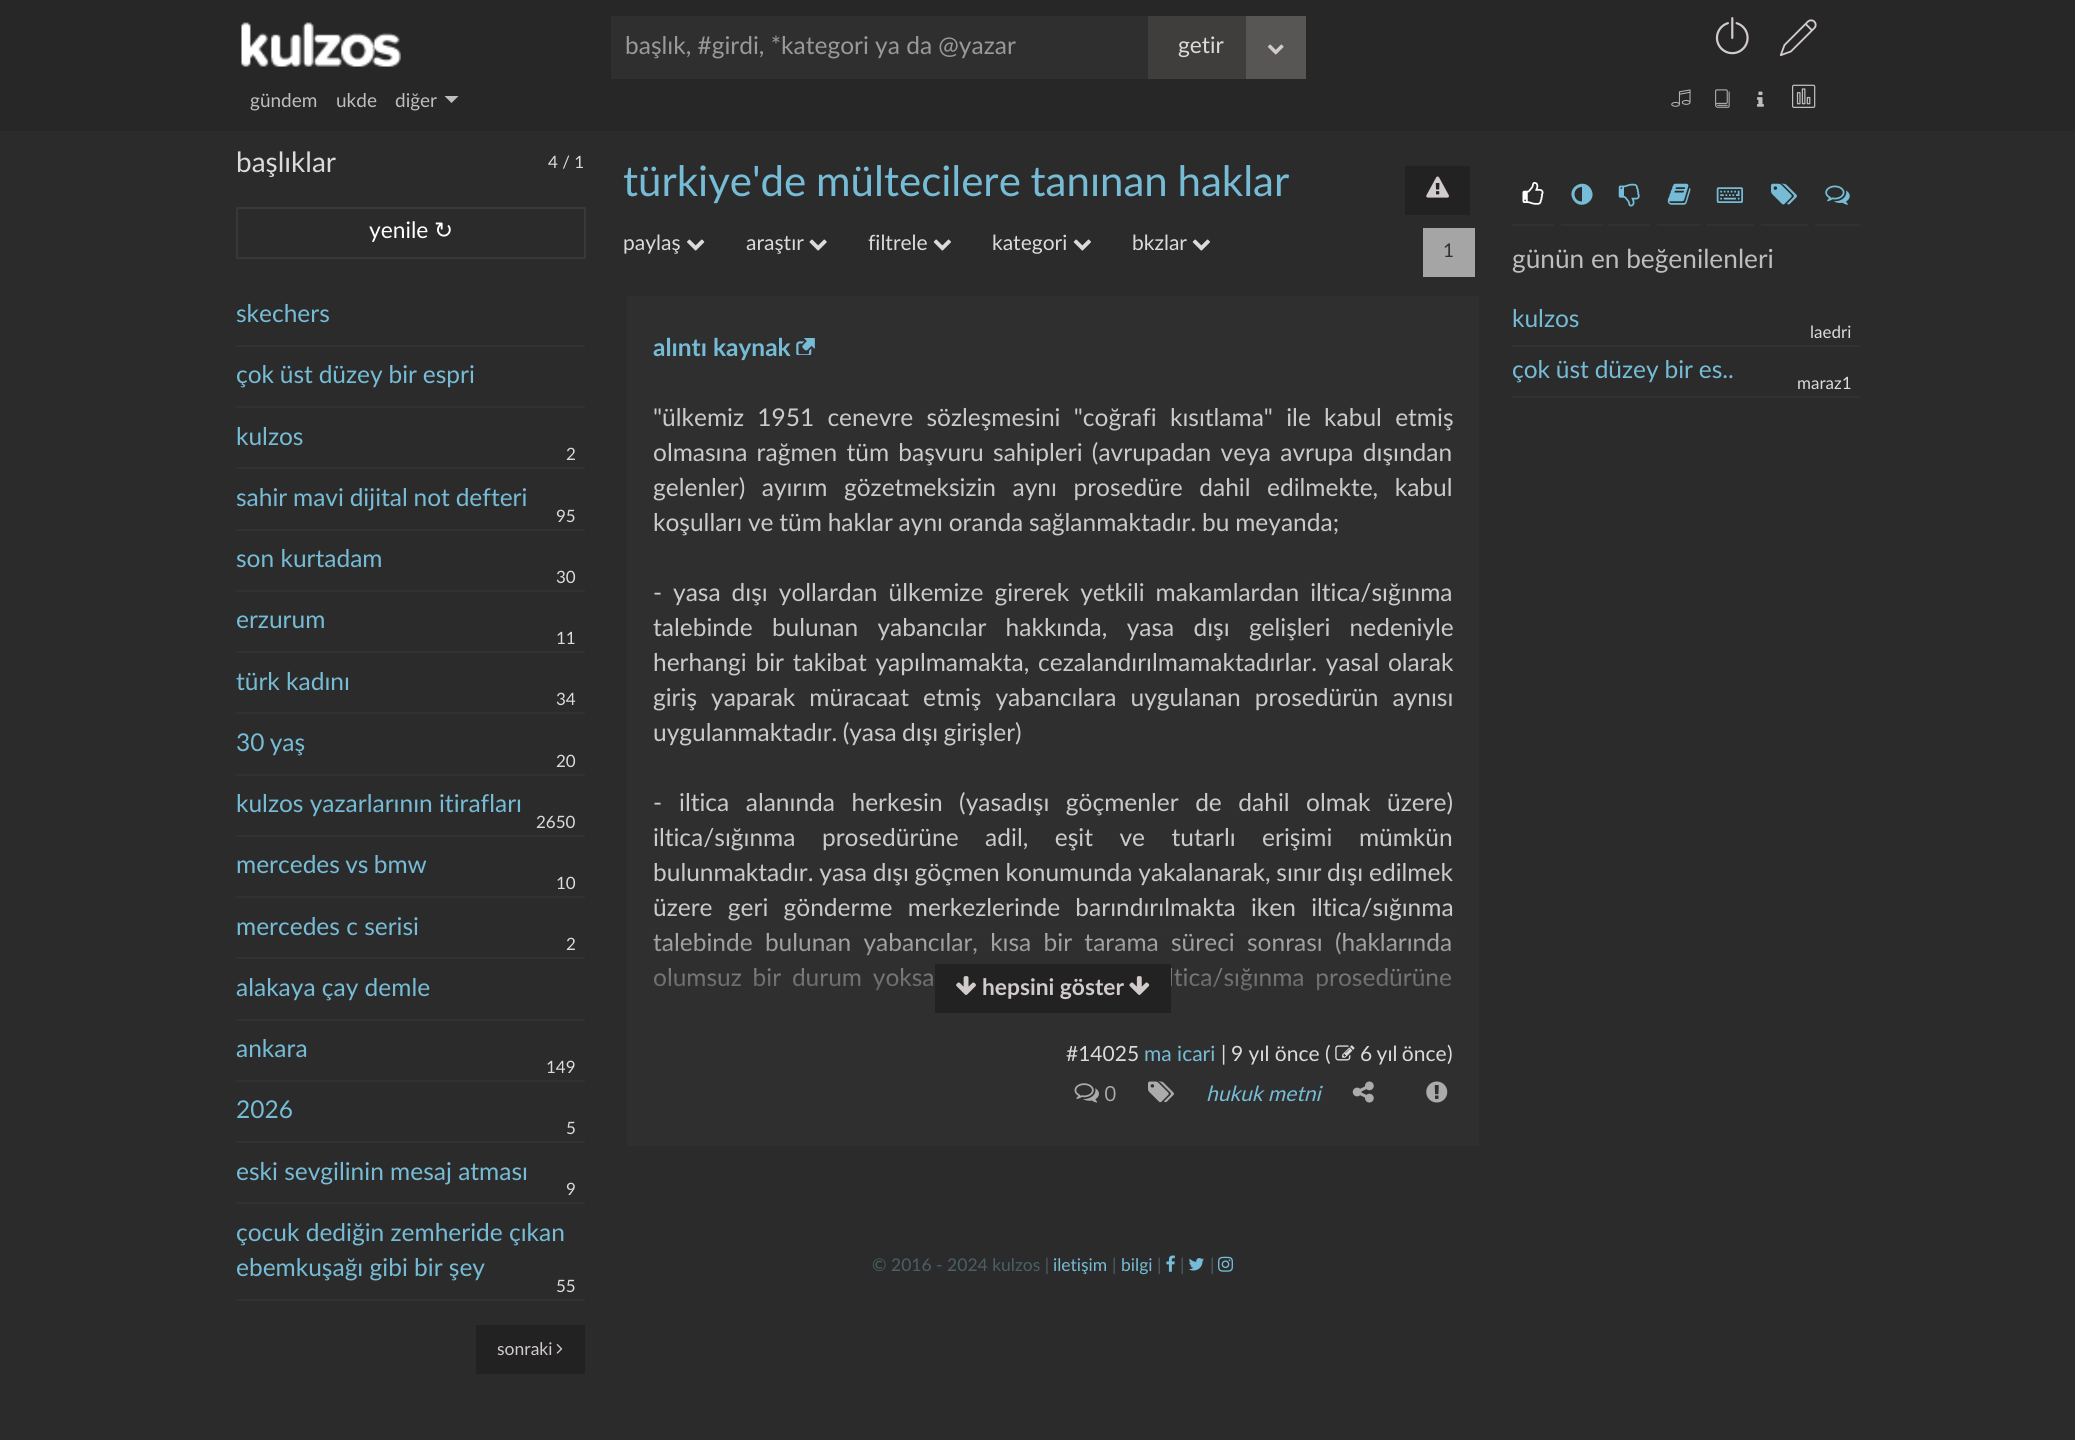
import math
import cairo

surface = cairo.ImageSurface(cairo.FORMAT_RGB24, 2075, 1440)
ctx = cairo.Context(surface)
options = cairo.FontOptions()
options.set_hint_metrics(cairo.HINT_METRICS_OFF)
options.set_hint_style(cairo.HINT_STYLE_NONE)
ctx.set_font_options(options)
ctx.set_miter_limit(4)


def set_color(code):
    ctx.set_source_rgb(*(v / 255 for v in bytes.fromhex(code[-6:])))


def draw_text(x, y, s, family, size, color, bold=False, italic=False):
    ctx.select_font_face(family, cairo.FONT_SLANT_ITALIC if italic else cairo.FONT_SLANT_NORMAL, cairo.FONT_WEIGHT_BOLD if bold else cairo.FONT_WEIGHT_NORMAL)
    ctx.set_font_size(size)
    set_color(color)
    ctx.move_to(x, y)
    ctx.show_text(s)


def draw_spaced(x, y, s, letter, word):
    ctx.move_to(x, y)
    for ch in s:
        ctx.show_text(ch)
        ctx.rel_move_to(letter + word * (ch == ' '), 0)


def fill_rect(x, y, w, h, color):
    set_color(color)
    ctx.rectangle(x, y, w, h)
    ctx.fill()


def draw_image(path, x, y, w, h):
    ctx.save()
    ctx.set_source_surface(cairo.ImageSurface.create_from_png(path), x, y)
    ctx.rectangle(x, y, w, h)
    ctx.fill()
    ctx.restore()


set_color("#2b2b2b")
ctx.paint()
fill_rect(0, 0, 2075, 131, "#272727")
draw_image("assets/img1.png", 241, 22, 160, 45)
fill_rect(611, 16, 537, 63, "#2f2f2f")
draw_text(625, 54, "başlık, #girdi, *kategori ya da @yazar", "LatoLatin", 24.5, "#999999")
fill_rect(1148, 16, 98, 63, "#403d3d")
draw_text(1178, 53, "getir", "LatoLatin", 22.75, "#dbdbdb")
fill_rect(1246, 16, 60, 63, "#585555")
draw_image("assets/img2.png", 1267, 44, 17, 11)
draw_image("assets/img3.png", 1715, 17, 34, 38)
draw_image("assets/img4.png", 1779, 19, 38, 38)
draw_text(250, 107, "gündem", "LatoLatin", 19, "#bfbdbd")
draw_text(336, 107, "ukde", "LatoLatin", 19, "#bfbdbd")
draw_text(395, 107, "diğer", "LatoLatin", 19, "#bfbdbd")
set_color("#bebebe")
ctx.new_path()
ctx.move_to(444.5, 96)
ctx.line_to(458.5, 96)
ctx.line_to(451.5, 103)
ctx.close_path()
ctx.fill()
draw_image("assets/img5.png", 1671, 89, 20, 18)
draw_image("assets/img6.png", 1715, 89, 15, 19)
draw_image("assets/img7.png", 1757, 91, 7, 16)
draw_image("assets/img8.png", 1792, 84, 24, 24)
draw_text(236, 172, "başlıklar", "LatoLatin", 28, "#dbdbdb")
draw_text(548, 168, "4 / 1", "LatoLatin", 17, "#dbdbdb")
ctx.rectangle(237, 208, 348, 50)
set_color("#383838")
ctx.stroke()
draw_text(369, 238, "yenile", "LatoLatin", 22.75, "#ffffff")
draw_text(434, 238, "↻", "DejaVu Sans", 22.75, "#ffffff")
fill_rect(236, 345, 349, 2, "#313131")
draw_text(236, 322, "skechers", "LatoLatin", 24.5, "#76bcd6")
fill_rect(236, 406, 349, 2, "#313131")
set_color("#76bcd6")
draw_spaced(236, 383, "çok üst düzey bir espri", 0, -0.5)
fill_rect(236, 467, 349, 2, "#313131")
draw_text(236, 445, "kulzos", "LatoLatin", 24.5, "#76bcd6")
draw_text(566, 460, "2", "LatoLatin", 17, "#dbdbdb")
fill_rect(236, 529, 349, 2, "#313131")
ctx.set_font_size(24.5)
set_color("#76bcd6")
draw_spaced(236, 506, "sahir mavi dijital not defteri", 0, -0.5)
draw_text(556, 522, "95", "LatoLatin", 17, "#dbdbdb")
fill_rect(236, 590, 349, 2, "#313131")
draw_text(236, 567, "son kurtadam", "LatoLatin", 24.5, "#76bcd6")
draw_text(556, 583, "30", "LatoLatin", 17, "#dbdbdb")
fill_rect(236, 651, 349, 2, "#313131")
draw_text(236, 628, "erzurum", "LatoLatin", 24.5, "#76bcd6")
draw_text(556, 644, "11", "LatoLatin", 17, "#dbdbdb")
fill_rect(236, 712, 349, 2, "#313131")
draw_text(236, 690, "türk kadını", "LatoLatin", 24.5, "#76bcd6")
draw_text(556, 705, "34", "LatoLatin", 17, "#dbdbdb")
fill_rect(236, 774, 349, 2, "#313131")
ctx.set_font_size(24.5)
set_color("#76bcd6")
draw_spaced(236, 751, "30 yaş", 0, -1)
draw_text(556, 767, "20", "LatoLatin", 17, "#dbdbdb")
fill_rect(236, 835, 349, 2, "#313131")
draw_text(236, 812, "kulzos yazarlarının itirafları", "LatoLatin", 24.5, "#76bcd6")
draw_text(536, 828, "2650", "LatoLatin", 17, "#dbdbdb")
fill_rect(236, 896, 349, 2, "#313131")
ctx.set_font_size(24.5)
set_color("#76bcd6")
draw_spaced(236, 873, "mercedes vs bmw", 0, -1)
draw_text(556, 889, "10", "LatoLatin", 17, "#dbdbdb")
fill_rect(236, 957, 349, 2, "#313131")
draw_text(236, 935, "mercedes c serisi", "LatoLatin", 24.5, "#76bcd6")
draw_text(566, 950, "2", "LatoLatin", 17, "#dbdbdb")
fill_rect(236, 1019, 349, 2, "#313131")
draw_text(236, 996, "alakaya çay demle", "LatoLatin", 24.5, "#76bcd6")
fill_rect(236, 1080, 349, 2, "#313131")
draw_text(236, 1057, "ankara", "LatoLatin", 24.5, "#76bcd6")
draw_text(546, 1073, "149", "LatoLatin", 17, "#dbdbdb")
fill_rect(236, 1141, 349, 2, "#313131")
draw_text(236, 1118, "2026", "LatoLatin", 24.5, "#76bcd6")
draw_text(566, 1134, "5", "LatoLatin", 17, "#dbdbdb")
fill_rect(236, 1202, 349, 2, "#313131")
draw_text(236, 1180, "eski sevgilinin mesaj atması", "LatoLatin", 24.5, "#76bcd6")
draw_text(566, 1195, "9", "LatoLatin", 17, "#dbdbdb")
fill_rect(236, 1299, 349, 2, "#313131")
draw_text(236, 1241, "çocuk dediğin zemheride çıkan", "LatoLatin", 24.5, "#76bcd6")
draw_text(236, 1276, "ebemkuşağı gibi bir şey", "LatoLatin", 24.5, "#76bcd6")
draw_text(556, 1292, "55", "LatoLatin", 17, "#dbdbdb")
fill_rect(476, 1325, 109, 49, "#232222")
draw_text(497, 1355, "sonraki", "LatoLatin", 17.5, "#d2cbcb")
draw_image("assets/img9.png", 556, 1344, 7, 10)
ctx.set_font_size(42)
set_color("#76bcd6")
draw_spaced(623, 196, "türkiye'de mültecilere tanınan haklar", 0, -1)
fill_rect(1405, 166, 65, 49, "#232222")
draw_image("assets/img10.png", 1426, 176, 23, 22)
draw_text(623, 250, "paylaş", "LatoLatin", 21, "#dbdbdb")
draw_image("assets/img11.png", 687, 239, 18, 12)
draw_text(746, 250, "araştır", "LatoLatin", 21, "#dbdbdb")
draw_image("assets/img12.png", 809, 239, 18, 12)
draw_text(868, 250, "filtrele", "LatoLatin", 21, "#dbdbdb")
draw_image("assets/img13.png", 933, 239, 18, 12)
draw_text(992, 250, "kategori", "LatoLatin", 21, "#dbdbdb")
draw_image("assets/img13.png", 1073, 239, 18, 12)
draw_text(1132, 250, "bkzlar", "LatoLatin", 21, "#dbdbdb")
draw_image("assets/img13.png", 1192, 239, 18, 12)
fill_rect(1423, 228, 52, 49, "#a5a5a5")
draw_text(1443, 257, "1", "LatoLatin", 19, "#303030")
fill_rect(627, 296, 852, 850, "#2f2f2f")
draw_text(653, 356, "alıntı kaynak", "LatoLatin", 24.5, "#76bcd6", bold=True)
draw_image("assets/img14.png", 796, 338, 19, 17)
ctx.select_font_face("LatoLatin")
set_color("#cacaca")
draw_spaced(653, 426, "\"ülkemiz 1951 cenevre sözleşmesini \"coğrafi kısıtlama\" ile kabul etmiş", 0, 7)
draw_spaced(653, 461, "olmasına rağmen tüm başvuru sahipleri (avrupadan veya avrupa dışından", 0, 3)
draw_spaced(653, 496, "gelenler) ayırım gözetmeksizin aynı prosedüre dahil edilmekte, kabul", 0, 10.25)
draw_spaced(653, 531, "koşulları ve tüm haklar aynı oranda sağlanmaktadır. bu meyanda;", 0, -0.5)
draw_text(653, 601, "-", "LatoLatin", 24.5, "#cacaca")
draw_spaced(673, 601, "yasa dışı yollardan ülkemize girerek yetkili makamlardan iltica/sığınma", 0, 4.75)
draw_spaced(653, 636, "talebinde bulunan yabancılar hakkında, yasa dışı gelişleri nedeniyle", 0, 13)
draw_spaced(653, 671, "herhangi bir takibat yapılmamakta, cezalandırılmamaktadırlar. yasal olarak", 0, 2.5)
draw_spaced(653, 706, "giriş yaparak müracaat etmiş yabancılara uygulanan prosedürün aynısı", 0, 7.75)
draw_spaced(653, 741, "uygulanmaktadır. (yasa dışı girişler)", 0, -1)
draw_text(653, 811, "-", "LatoLatin", 24.5, "#cacaca")
draw_spaced(679, 811, "iltica alanında herkesin (yasadışı göçmenler de dahil olmak üzere)", 0, 10.25)
draw_spaced(653, 846, "iltica/sığınma prosedürüne adil, eşit ve tutarlı erişimi mümkün", 0, 20.25)
draw_spaced(653, 881, "bulunmaktadır. yasa dışı göçmen konumunda yakalanarak, sınır dışı edilmek", 0, -0.5)
draw_spaced(653, 916, "üzere geri gönderme merkezlerinde barındırılmakta iken iltica/sığınma", 0, 9)
draw_spaced(653, 951, "talebinde bulunan yabancılar, kısa bir tarama süreci sonrası (haklarında", 0, 6)
draw_spaced(653, 986, "olumsuz bir durum yoksa", 0, 4.5)
draw_spaced(1168, 986, "ltica/sığınma prosedürüne", 0, 4.5)
gradient = cairo.LinearGradient(653, 912, 653, 1031)
gradient.add_color_stop_rgba(0, 0.184, 0.184, 0.184, 0)
gradient.add_color_stop_rgba(1, 0.184, 0.184, 0.184, 1)
ctx.set_source(gradient)
ctx.rectangle(653, 915, 799, 76)
ctx.fill()
fill_rect(935, 964, 236, 49, "#232222")
draw_image("assets/img15.png", 956, 976, 20, 19)
draw_text(982, 995, "hepsini göster", "LatoLatin", 22.75, "#d2cbcb", bold=True)
draw_image("assets/img16.png", 1129, 976, 21, 19)
draw_text(1066, 1061, "#14025", "LatoLatin", 21, "#dbdbdb")
draw_text(1144, 1061, "ma icari", "LatoLatin", 21, "#76bcd6")
draw_text(1221, 1061, "|", "LatoLatin", 21, "#dbdbdb")
draw_text(1231, 1061, "9 yıl önce", "LatoLatin", 21, "#dbdbdb")
draw_text(1325, 1061, "(", "LatoLatin", 21, "#dbdbdb")
draw_image("assets/img17.png", 1335, 1045, 20, 16)
draw_spaced(1360, 1061, "6 yıl önce", 0, -1)
draw_text(1447, 1061, ")", "LatoLatin", 21, "#dbdbdb")
draw_image("assets/img18.png", 1074, 1083, 25, 20)
draw_text(1104, 1101, "0", "Nunito", 21, "#ababab")
draw_image("assets/img19.png", 1148, 1081, 26, 22)
draw_text(1206, 1101, "hukuk metni", "LatoLatin", 21, "#76bcd6", italic=True)
draw_image("assets/img20.png", 1352, 1081, 22, 22)
draw_image("assets/img21.png", 1426, 1081, 22, 22)
draw_text(872, 1271, "© 2016 - 2024 kulzos |", "LatoLatin", 17.5, "#4a5f66")
draw_text(1053, 1271, "iletişim", "LatoLatin", 17.5, "#76bcd6")
draw_text(1112, 1271, "|", "LatoLatin", 17.5, "#4a5f66")
draw_text(1121, 1271, "bilgi", "LatoLatin", 17.5, "#76bcd6")
draw_text(1157, 1271, "|", "LatoLatin", 17.5, "#4a5f66")
draw_image("assets/img22.png", 1166, 1255, 9, 17)
draw_text(1180, 1271, "|", "LatoLatin", 17.5, "#4a5f66")
draw_image("assets/img23.png", 1188, 1258, 16, 13)
draw_text(1210, 1271, "|", "LatoLatin", 17.5, "#4a5f66")
draw_image("assets/img24.png", 1218, 1256, 15, 16)
fill_rect(1512, 224, 42, 2, "#313131")
draw_image("assets/img25.png", 1522, 182, 22, 23)
fill_rect(1561, 224, 42, 2, "#313131")
set_color("#76bcd6")
ctx.new_path()
ctx.move_to(1582, 201.5)
ctx.line_to(1582, 187)
ctx.curve_to(1572, 187, 1572, 201.5, 1582, 201.5)
ctx.close_path()
ctx.move_to(1591, 189)
ctx.curve_to(1598, 201, 1580, 211.5, 1573, 199.5)
ctx.curve_to(1566, 187.5, 1584, 177, 1591, 189)
ctx.close_path()
ctx.fill()
fill_rect(1608, 224, 42, 2, "#313131")
draw_image("assets/img26.png", 1618, 183, 22, 24)
fill_rect(1657, 224, 44, 2, "#313131")
draw_image("assets/img27.png", 1667, 183, 24, 22)
fill_rect(1706, 224, 48, 2, "#313131")
draw_image("assets/img28.png", 1716, 187, 27, 16)
fill_rect(1761, 224, 47, 2, "#313131")
draw_image("assets/img29.png", 1771, 183, 26, 22)
fill_rect(1815, 224, 45, 2, "#313131")
draw_image("assets/img30.png", 1825, 185, 25, 20)
draw_text(1512, 268, "günün en beğenilenleri", "LatoLatin", 26.25, "#bfbdbd")
fill_rect(1512, 345, 348, 2, "#313131")
draw_text(1512, 327, "kulzos", "LatoLatin", 24.5, "#76bcd6")
draw_text(1810, 338, "laedri", "LatoLatin", 17, "#dbdbdb")
fill_rect(1512, 396, 348, 2, "#313131")
ctx.set_font_size(24.5)
set_color("#76bcd6")
draw_spaced(1512, 378, "çok üst düzey bir es..", 0, -0.5)
draw_text(1797, 389, "maraz1", "LatoLatin", 17, "#dbdbdb")
surface.write_to_png("output.png")
